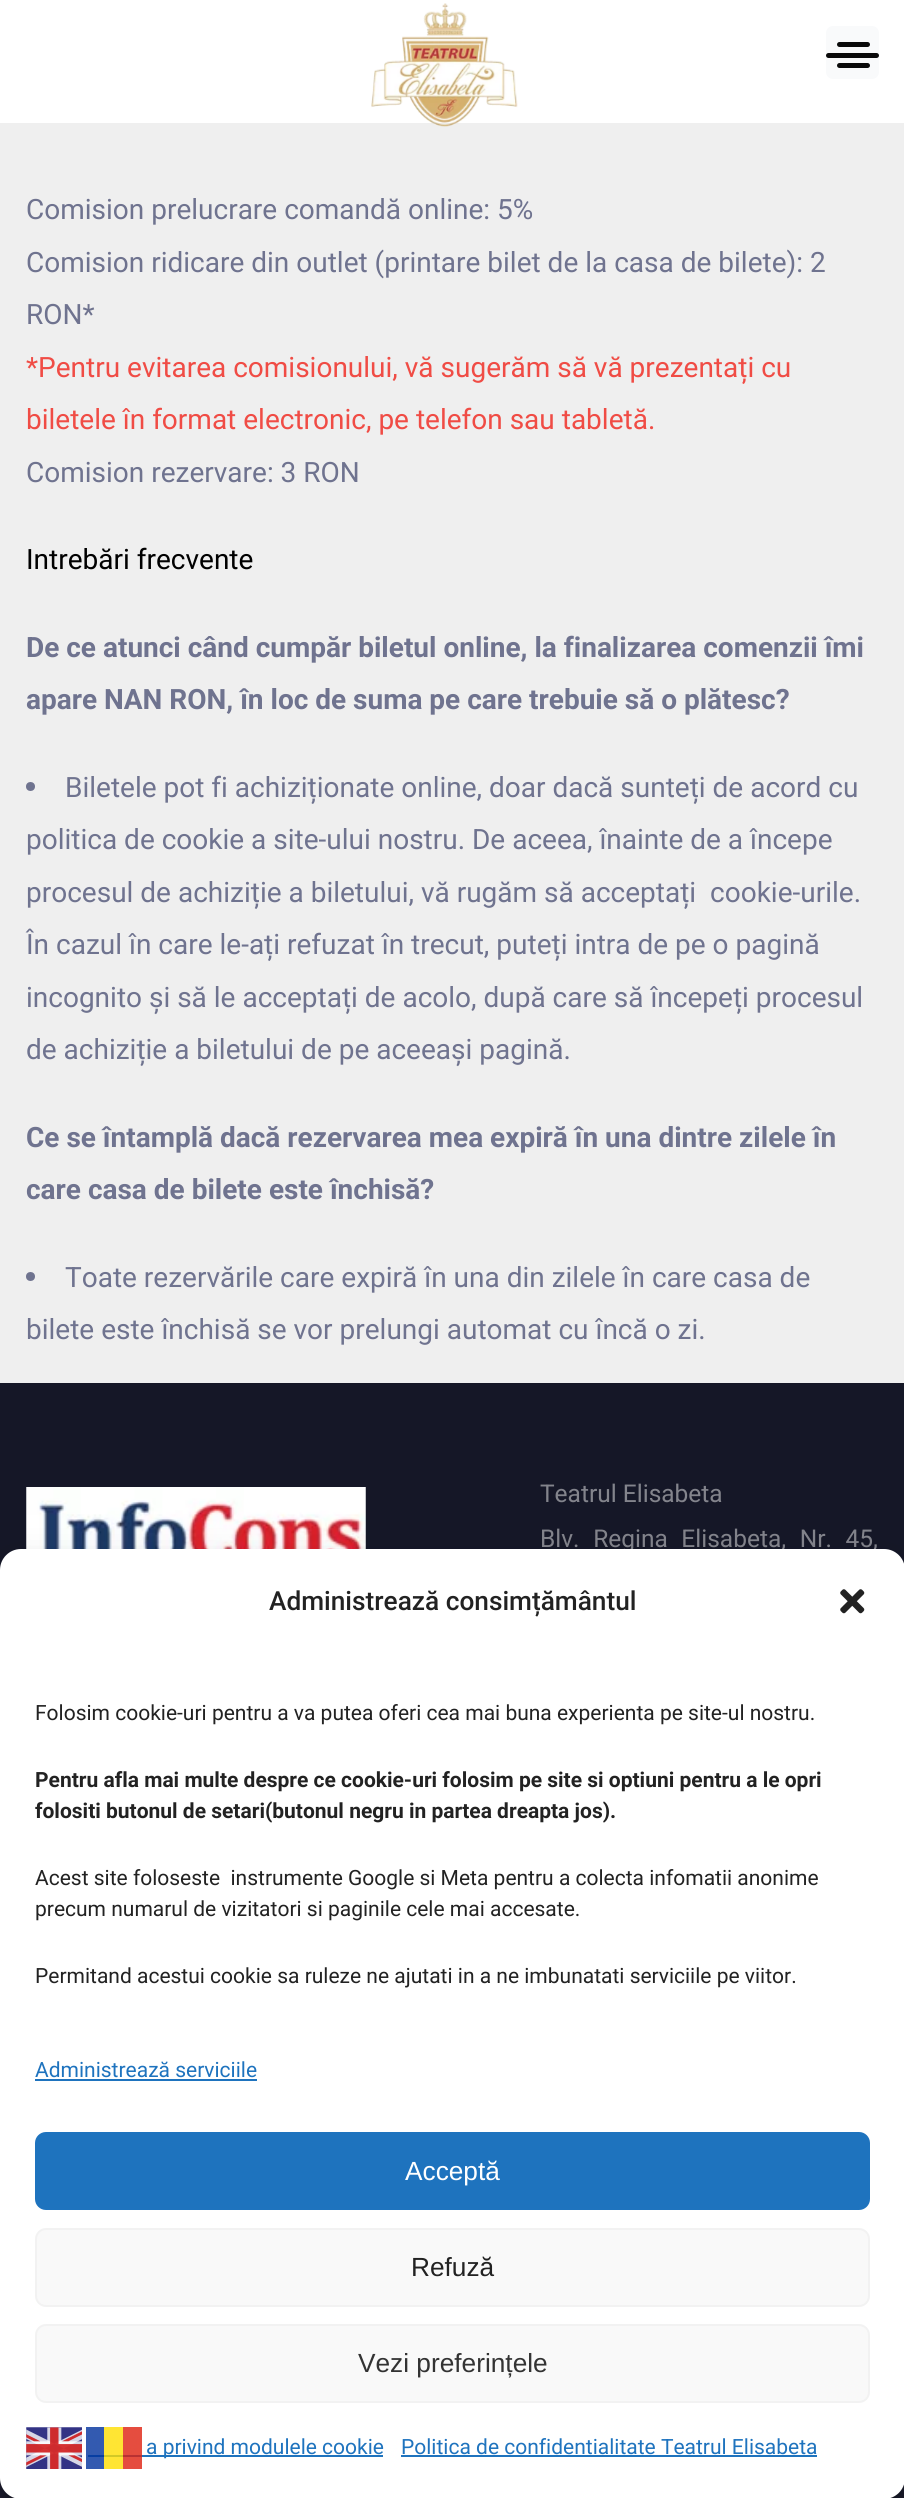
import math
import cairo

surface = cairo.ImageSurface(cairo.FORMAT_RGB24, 904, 2498)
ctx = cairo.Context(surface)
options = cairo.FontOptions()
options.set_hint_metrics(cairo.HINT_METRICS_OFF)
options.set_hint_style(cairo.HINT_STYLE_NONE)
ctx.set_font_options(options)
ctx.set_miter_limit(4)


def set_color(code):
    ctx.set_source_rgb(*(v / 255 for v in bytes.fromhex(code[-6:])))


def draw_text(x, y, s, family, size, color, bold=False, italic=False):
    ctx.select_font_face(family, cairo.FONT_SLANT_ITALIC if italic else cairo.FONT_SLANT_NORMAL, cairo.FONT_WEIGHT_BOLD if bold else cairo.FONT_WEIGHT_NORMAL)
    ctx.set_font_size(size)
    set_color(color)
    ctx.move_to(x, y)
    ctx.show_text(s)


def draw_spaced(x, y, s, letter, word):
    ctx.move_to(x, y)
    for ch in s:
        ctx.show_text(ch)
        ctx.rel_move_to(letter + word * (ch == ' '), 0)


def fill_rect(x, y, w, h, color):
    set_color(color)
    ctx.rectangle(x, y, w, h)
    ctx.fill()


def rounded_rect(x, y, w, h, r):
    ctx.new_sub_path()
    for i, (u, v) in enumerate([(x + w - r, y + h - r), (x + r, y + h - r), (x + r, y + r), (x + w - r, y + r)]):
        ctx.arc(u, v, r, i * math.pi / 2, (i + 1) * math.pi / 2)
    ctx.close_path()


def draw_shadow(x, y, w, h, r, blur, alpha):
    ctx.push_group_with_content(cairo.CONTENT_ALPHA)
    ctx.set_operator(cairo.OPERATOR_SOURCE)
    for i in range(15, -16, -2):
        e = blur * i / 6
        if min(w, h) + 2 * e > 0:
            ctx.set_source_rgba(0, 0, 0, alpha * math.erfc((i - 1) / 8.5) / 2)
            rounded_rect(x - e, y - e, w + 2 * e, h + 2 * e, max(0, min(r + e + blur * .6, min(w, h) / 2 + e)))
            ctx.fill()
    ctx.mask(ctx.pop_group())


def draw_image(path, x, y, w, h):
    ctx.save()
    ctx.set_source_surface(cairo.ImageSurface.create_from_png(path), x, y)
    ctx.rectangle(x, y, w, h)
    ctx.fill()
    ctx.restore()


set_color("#efefef")
ctx.paint()
fill_rect(0, 0, 904, 123, "#ffffff")
draw_image("assets/img1.png", 371, 3, 147, 124)
set_color("#f9fafb")
rounded_rect(826, 26, 53, 53, 7)
ctx.fill()
set_color("#0a0a0a")
rounded_rect(837, 42, 33, 5, 2.5)
ctx.fill()
rounded_rect(826, 53, 53, 5, 2.5)
ctx.fill()
rounded_rect(837, 63, 33, 5, 2.5)
ctx.fill()
draw_text(26, 219, "Comision prelucrare comandă online: 5%", "Roboto", 28, "#6f738f")
draw_text(26, 272, "Comision ridicare din outlet (printare bilet de la casa de bilete): 2", "Roboto", 28, "#6f738f")
draw_text(26, 324, "RON*", "Roboto", 28, "#6f738f")
draw_text(26, 377, "*Pentru evitarea comisionului, vă sugerăm să vă prezentați cu", "Roboto", 28, "#f04c45")
draw_text(26, 429, "biletele în format electronic, pe telefon sau tabletă.", "Roboto", 28, "#f04c45")
draw_text(26, 482, "Comision rezervare: 3 RON", "Roboto", 28, "#6f738f")
draw_text(26, 569, "Intrebări frecvente", "Roboto", 28, "#000000")
draw_text(26, 657, "De ce atunci când cumpăr biletul online, la finalizarea comenzii îmi", "Roboto", 28, "#6f738f", bold=True)
draw_text(26, 709, "apare NAN RON, în loc de suma pe care trebuie să o plătesc?", "Roboto", 28, "#6f738f", bold=True)
ctx.new_path()
ctx.arc(30.5, 786.5, 4.5, 0, 2 * math.pi)
ctx.fill()
draw_text(65, 797, "Biletele pot fi achiziționate online, doar dacă sunteți de acord cu", "Roboto", 28, "#6f738f")
draw_text(26, 849, "politica de cookie a site-ului nostru. De aceea, înainte de a începe", "Roboto", 28, "#6f738f")
draw_text(26, 902, "procesul de achiziție a biletului, vă rugăm să acceptați  cookie-urile.", "Roboto", 28, "#6f738f")
draw_text(26, 954, "În cazul în care le-ați refuzat în trecut, puteți intra de pe o pagină", "Roboto", 28, "#6f738f")
draw_text(26, 1007, "incognito și să le acceptați de acolo, după care să începeți procesul", "Roboto", 28, "#6f738f")
draw_text(26, 1059, "de achiziție a biletului de pe aceeași pagină.", "Roboto", 28, "#6f738f")
draw_text(26, 1147, "Ce se întamplă dacă rezervarea mea expiră în una dintre zilele în", "Roboto", 28, "#6f738f", bold=True)
draw_text(26, 1199, "care casa de bilete este închisă?", "Roboto", 28, "#6f738f", bold=True)
ctx.new_path()
ctx.arc(30.5, 1276.5, 4.5, 0, 2 * math.pi)
ctx.fill()
draw_text(65, 1287, "Toate rezervările care expiră în una din zilele în care casa de", "Roboto", 28, "#6f738f")
draw_text(26, 1339, "bilete este închisă se vor prelungi automat cu încă o zi.", "Roboto", 28, "#6f738f")
fill_rect(0, 1383, 904, 187, "#151727")
draw_image("assets/img2.png", 26, 1487, 340, 62)
draw_text(540, 1502, "Teatrul Elisabeta", "Roboto", 24.5, "#83848c")
draw_spaced(540, 1547, "Blv. Regina Elisabeta, Nr. 45,", 0, 7.5)
fill_rect(0, 2478, 904, 20, "#1d1f31")
set_color("#000000")
draw_shadow(0, 1559, 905, 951, 21, 5, 0.23)
draw_shadow(0, 1566, 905, 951, 21, 17.5, 0.19)
set_color("#ffffff")
rounded_rect(0, 1549, 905, 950, 21)
ctx.fill()
draw_text(269, 1610, "Administrează consimțământul", "Roboto Medium", 26.25, "#222222")
draw_image("assets/img3.png", 840, 1589, 25, 25)
draw_text(35, 1720, "Folosim cookie-uri pentru a va putea oferi cea mai buna experienta pe site-ul nostru.", "Roboto", 21, "#222222")
draw_text(35, 1787, "Pentru afla mai multe despre ce cookie-uri folosim pe site si optiuni pentru a le opri", "Roboto", 21, "#222222", bold=True)
draw_text(35, 1818, "folositi butonul de setari(butonul negru in partea dreapta jos).", "Roboto", 21, "#222222", bold=True)
draw_text(35, 1885, "Acest site foloseste  instrumente Google si Meta pentru a colecta infomatii anonime", "Roboto", 21, "#222222")
draw_text(35, 1916, "precum numarul de vizitatori si paginile cele mai accesate.", "Roboto", 21, "#222222")
draw_text(35, 1983, "Permitand acestui cookie sa ruleze ne ajutati in a ne imbunatati serviciile pe viitor.", "Roboto", 21, "#222222")
draw_text(35, 2077, "Administrează serviciile", "Roboto", 21, "#1e73be")
fill_rect(35, 2079, 222, 2, "#1e73be")
rounded_rect(36, 2133, 833, 76, 10)
ctx.fill_preserve()
ctx.stroke()
draw_text(405, 2180, "Acceptă", "Liberation Sans", 26.25, "#ffffff")
set_color("#f9f9f9")
rounded_rect(36, 2229, 833, 77, 10)
ctx.fill_preserve()
set_color("#f2f2f2")
ctx.stroke()
draw_text(411, 2276, "Refuză", "Liberation Sans", 26.25, "#222222")
set_color("#f9f9f9")
rounded_rect(36, 2325, 833, 77, 10)
ctx.fill_preserve()
set_color("#f2f2f2")
ctx.stroke()
draw_text(358, 2372, "Vezi preferințele", "Liberation Sans", 26.25, "#333333")
fill_rect(88, 2455, 295, 2, "#1e73be")
draw_text(146, 2454, "a privind modulele cookie", "Roboto", 21, "#1e73be")
draw_text(401, 2454, "Politica de confidentialitate Teatrul Elisabeta", "Roboto", 21, "#1e73be")
fill_rect(401, 2455, 416, 2, "#1e73be")
draw_image("assets/img4.png", 26, 2427, 56, 42)
ctx.set_source_rgba(0, 0.192, 0.612, 0.8)
ctx.rectangle(86, 2427, 18, 42)
ctx.fill()
ctx.set_source_rgba(1, 0.871, 0, 0.8)
ctx.rectangle(104, 2427, 19, 42)
ctx.fill()
ctx.set_source_rgba(0.871, 0.129, 0.063, 0.8)
ctx.rectangle(123, 2427, 19, 42)
ctx.fill()
surface.write_to_png("output.png")
